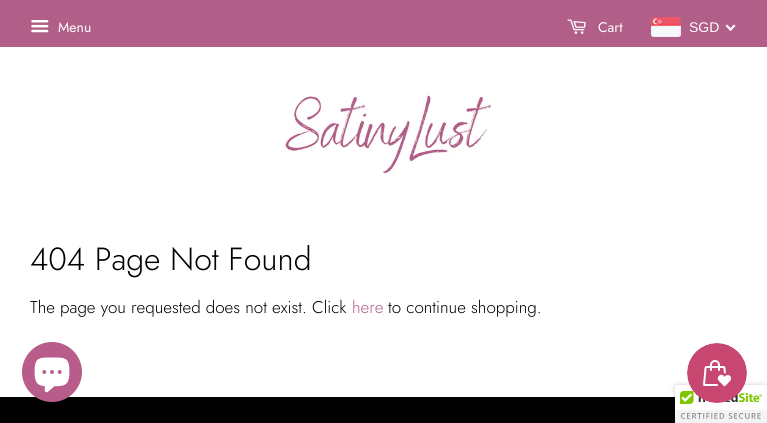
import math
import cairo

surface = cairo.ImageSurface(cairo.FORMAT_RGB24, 767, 423)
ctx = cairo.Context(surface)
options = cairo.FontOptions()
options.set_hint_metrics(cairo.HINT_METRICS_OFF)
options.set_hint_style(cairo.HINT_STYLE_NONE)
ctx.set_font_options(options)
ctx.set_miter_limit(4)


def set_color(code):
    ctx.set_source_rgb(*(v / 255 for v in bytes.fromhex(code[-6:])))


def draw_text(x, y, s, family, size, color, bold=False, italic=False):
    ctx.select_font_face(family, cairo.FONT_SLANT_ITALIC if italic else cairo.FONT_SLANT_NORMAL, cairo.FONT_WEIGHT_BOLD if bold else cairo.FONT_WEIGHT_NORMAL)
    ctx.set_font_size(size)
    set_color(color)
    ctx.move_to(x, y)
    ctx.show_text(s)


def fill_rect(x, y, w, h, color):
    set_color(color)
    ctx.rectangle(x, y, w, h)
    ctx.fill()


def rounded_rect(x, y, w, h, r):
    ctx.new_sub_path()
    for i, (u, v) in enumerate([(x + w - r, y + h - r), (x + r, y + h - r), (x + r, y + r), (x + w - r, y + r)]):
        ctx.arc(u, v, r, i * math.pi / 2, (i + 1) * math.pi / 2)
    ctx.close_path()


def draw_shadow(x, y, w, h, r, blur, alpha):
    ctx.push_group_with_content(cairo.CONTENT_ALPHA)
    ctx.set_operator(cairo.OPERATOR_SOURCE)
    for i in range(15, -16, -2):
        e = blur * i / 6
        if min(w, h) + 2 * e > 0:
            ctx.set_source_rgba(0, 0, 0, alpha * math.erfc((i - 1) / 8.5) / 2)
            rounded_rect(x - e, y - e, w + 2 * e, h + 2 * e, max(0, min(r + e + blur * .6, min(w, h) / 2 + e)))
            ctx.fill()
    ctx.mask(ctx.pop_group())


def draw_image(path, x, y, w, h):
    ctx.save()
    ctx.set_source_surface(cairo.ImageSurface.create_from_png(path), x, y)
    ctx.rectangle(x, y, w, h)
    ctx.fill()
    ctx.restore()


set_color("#ffffff")
ctx.paint()
fill_rect(0, 0, 767, 47, "#b15f88")
draw_image("assets/img1.png", 31, 20, 18, 13)
draw_text(58, 32, "Menu", "Jost", 14, "#ffffff")
draw_image("assets/img2.png", 567, 19, 19, 15)
draw_text(598, 32, "Cart", "Jost", 14, "#ffffff")
draw_image("assets/img3.png", 651, 17, 30, 20)
draw_text(689, 32, "SGD", "Liberation Sans", 14, "#ffffff")
ctx.new_path()
ctx.move_to(734, 24.5)
ctx.line_to(735.5, 26)
ctx.line_to(730.5, 31)
ctx.line_to(729, 29.5)
ctx.close_path()
ctx.fill()
ctx.new_path()
ctx.move_to(727, 24.5)
ctx.line_to(732, 29.5)
ctx.line_to(730.5, 31)
ctx.line_to(725.5, 26)
ctx.close_path()
ctx.fill()
draw_image("assets/img4.png", 284, 92, 207, 83)
draw_text(30, 270, "404 Page Not Found", "Jost Light", 32, "#000000")
draw_text(30, 313, "The page you requested does not exist. Click", "Jost Light", 17, "#000000")
draw_text(352, 313, "here", "Jost Light", 17, "#b15f88")
draw_text(388, 313, "to continue shopping.", "Jost Light", 17, "#000000")
fill_rect(0, 397, 675, 26, "#000000")
set_color("#b85c8c")
ctx.new_path()
ctx.arc(52, 372, 30, 0, 2 * math.pi)
ctx.fill()
draw_image("assets/img5.png", 34, 357, 36, 36)
set_color("#000000")
draw_shadow(675, 385, 92, 38, 2, 2.5, 0.2)
set_color("#ffffff")
ctx.new_path()
ctx.move_to(677, 385)
ctx.line_to(767, 385)
ctx.line_to(767, 423)
ctx.line_to(675, 423)
ctx.line_to(675, 387)
ctx.curve_to(675, 386, 676, 385, 677, 385)
ctx.close_path()
ctx.fill()
draw_image("assets/img7.png", 675, 385, 92, 38)
draw_image("assets/img6.png", 687, 343, 60, 60)
surface.write_to_png("output.png")
